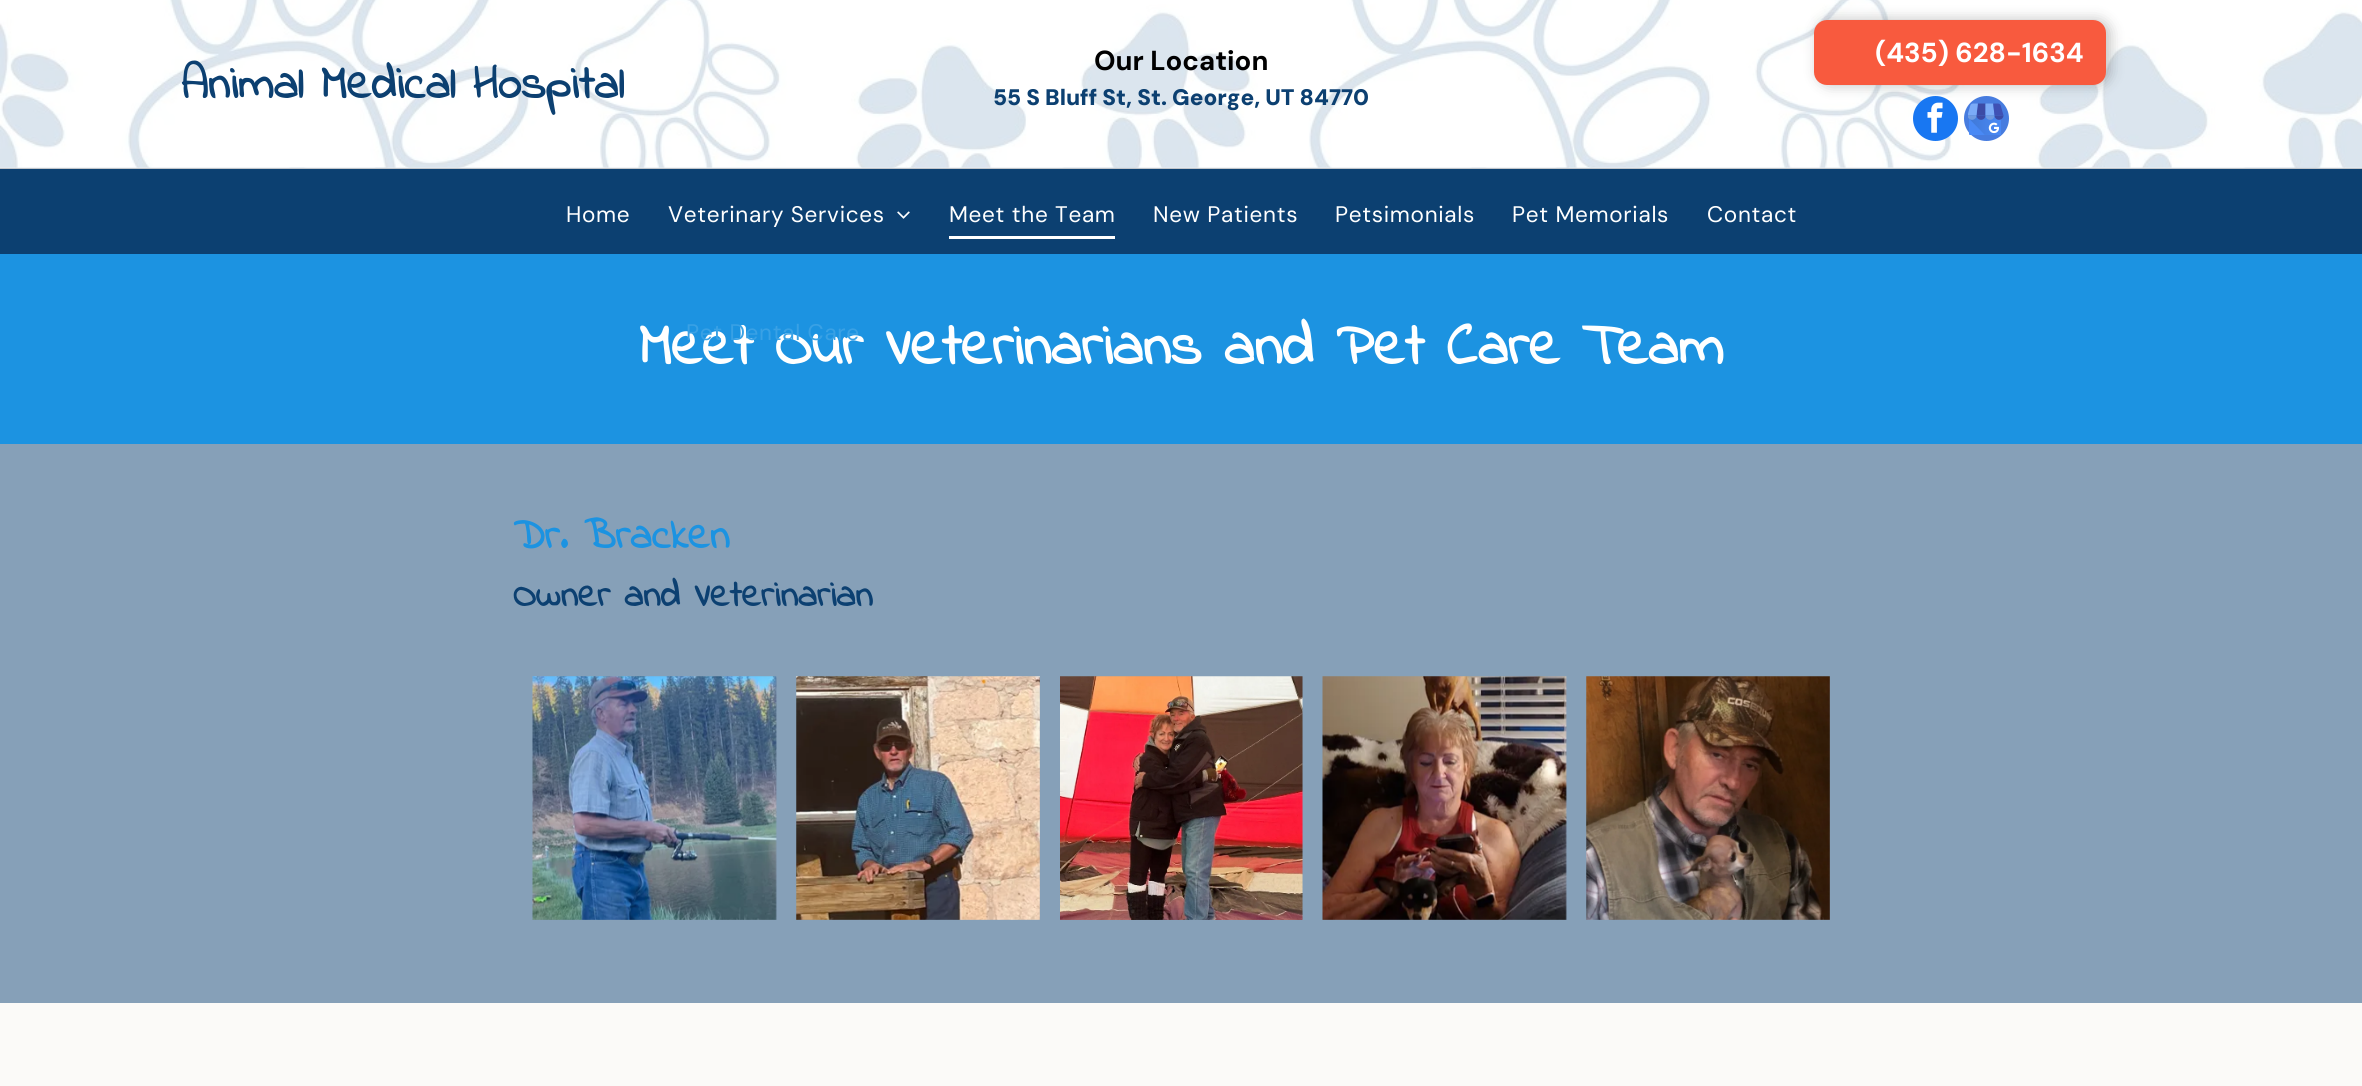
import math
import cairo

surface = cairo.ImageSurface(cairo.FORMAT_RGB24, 2362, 1086)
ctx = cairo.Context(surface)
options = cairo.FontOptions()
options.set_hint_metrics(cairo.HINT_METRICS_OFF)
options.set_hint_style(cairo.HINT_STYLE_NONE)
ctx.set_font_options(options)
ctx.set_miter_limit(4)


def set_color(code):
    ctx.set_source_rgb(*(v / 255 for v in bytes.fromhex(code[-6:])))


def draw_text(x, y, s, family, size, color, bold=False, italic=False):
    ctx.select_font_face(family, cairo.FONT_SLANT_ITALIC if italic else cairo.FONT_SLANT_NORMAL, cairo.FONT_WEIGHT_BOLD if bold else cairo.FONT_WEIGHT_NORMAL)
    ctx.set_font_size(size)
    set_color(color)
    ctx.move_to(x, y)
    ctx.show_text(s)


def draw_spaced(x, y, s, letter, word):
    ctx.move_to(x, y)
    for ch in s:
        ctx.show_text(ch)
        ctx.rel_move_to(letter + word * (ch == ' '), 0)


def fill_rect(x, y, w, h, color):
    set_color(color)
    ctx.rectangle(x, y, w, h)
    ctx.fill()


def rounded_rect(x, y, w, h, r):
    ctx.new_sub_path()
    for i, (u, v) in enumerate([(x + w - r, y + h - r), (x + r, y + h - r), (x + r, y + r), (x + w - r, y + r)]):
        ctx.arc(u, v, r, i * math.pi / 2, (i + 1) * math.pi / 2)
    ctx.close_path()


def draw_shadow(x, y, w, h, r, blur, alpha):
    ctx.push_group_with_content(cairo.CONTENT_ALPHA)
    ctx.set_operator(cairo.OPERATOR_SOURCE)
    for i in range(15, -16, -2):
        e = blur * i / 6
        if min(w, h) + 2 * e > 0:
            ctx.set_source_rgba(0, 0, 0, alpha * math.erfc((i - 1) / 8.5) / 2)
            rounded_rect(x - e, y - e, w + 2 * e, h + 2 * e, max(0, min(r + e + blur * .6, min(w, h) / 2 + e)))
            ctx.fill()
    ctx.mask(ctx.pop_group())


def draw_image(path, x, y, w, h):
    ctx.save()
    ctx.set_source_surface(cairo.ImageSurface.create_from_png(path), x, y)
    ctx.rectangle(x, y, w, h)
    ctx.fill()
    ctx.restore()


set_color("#86a0b8")
ctx.paint()
draw_image("assets/img1.png", 0, 167, 2362, 1)
draw_image("assets/img2.png", 0, 0, 2362, 168)
ctx.set_source_rgba(1, 1, 1, 0.8)
ctx.rectangle(0, 0, 2362, 168)
ctx.fill()
draw_text(181, 98, "Animal Medical Hospital", "Indie Flower", 47.5, "#0c4071", bold=True)
draw_text(1094, 70, "Our Location", "DM Sans", 27.5, "#000000", bold=True)
draw_text(993, 105, "55 S Bluff St, St. George, UT 84770", "DM Sans Black", 22.5, "#0c4071")
set_color("#000000")
draw_shadow(1818, 20, 292, 65, 13, 7, 0.25)
set_color("#f85a3e")
rounded_rect(1814, 20, 292, 65, 13)
ctx.fill()
draw_text(1875, 62, "(435) 628-1634", "DM Sans", 27.5, "#ffffff", bold=True)
set_color("#1877f2")
ctx.new_path()
ctx.arc(1935.5, 118.5, 22.5, 0, 2 * math.pi)
ctx.fill()
draw_image("assets/img3.png", 1927, 102, 16, 31)
set_color("#477cdf")
ctx.arc(1986.5, 118.5, 22.5, 0, 2 * math.pi)
ctx.fill()
draw_image("assets/img4.png", 1968, 103, 36, 32)
fill_rect(0, 169, 2362, 85, "#0c4071")
fill_rect(0, 168, 2362, 1, "#c0c4c9")
ctx.select_font_face("DM Sans")
ctx.set_font_size(22.5)
set_color("#ffffff")
draw_spaced(566, 222, "Home", 0.7, 0)
draw_spaced(668, 222, "Veterinary Services", 0.7, 0)
draw_image("assets/img5.png", 897, 211, 13, 8)
fill_rect(0, 254, 2362, 190, "#1c93e1")
draw_text(639, 364, "Meet Our Veterinarians and Pet Care Team", "Indie Flower", 60, "#ffffff", bold=True)
ctx.select_font_face("DM Sans")
ctx.set_font_size(22.5)
set_color("#39a1e5")
draw_spaced(686, 340, "Pet Dental Care", 0.7, 0)
set_color("#ffffff")
draw_spaced(949, 222, "Meet the Team", 0.7, 0)
fill_rect(949, 236, 166, 3, "#ffffff")
draw_spaced(1153, 222, "New Patients", 0.7, 0)
draw_spaced(1335, 222, "Petsimonials", 0.7, 0)
draw_spaced(1512, 222, "Pet Memorials", 0.7, 0)
draw_spaced(1707, 222, "Contact", 0.7, 0)
draw_text(513, 548, "Dr. Bracken", "Indie Flower", 42.5, "#1c93e1", bold=True)
draw_text(513, 606, "Owner and Veterinarian", "Indie Flower", 37.5, "#0c4071", bold=True)
draw_image("assets/img6.png", 532, 676, 245, 244)
draw_image("assets/img7.png", 796, 676, 244, 244)
draw_image("assets/img8.png", 1060, 676, 243, 244)
draw_image("assets/img9.png", 1322, 676, 245, 244)
draw_image("assets/img10.png", 1586, 676, 244, 244)
fill_rect(0, 1003, 2362, 83, "#fbfaf8")
surface.write_to_png("output.png")
